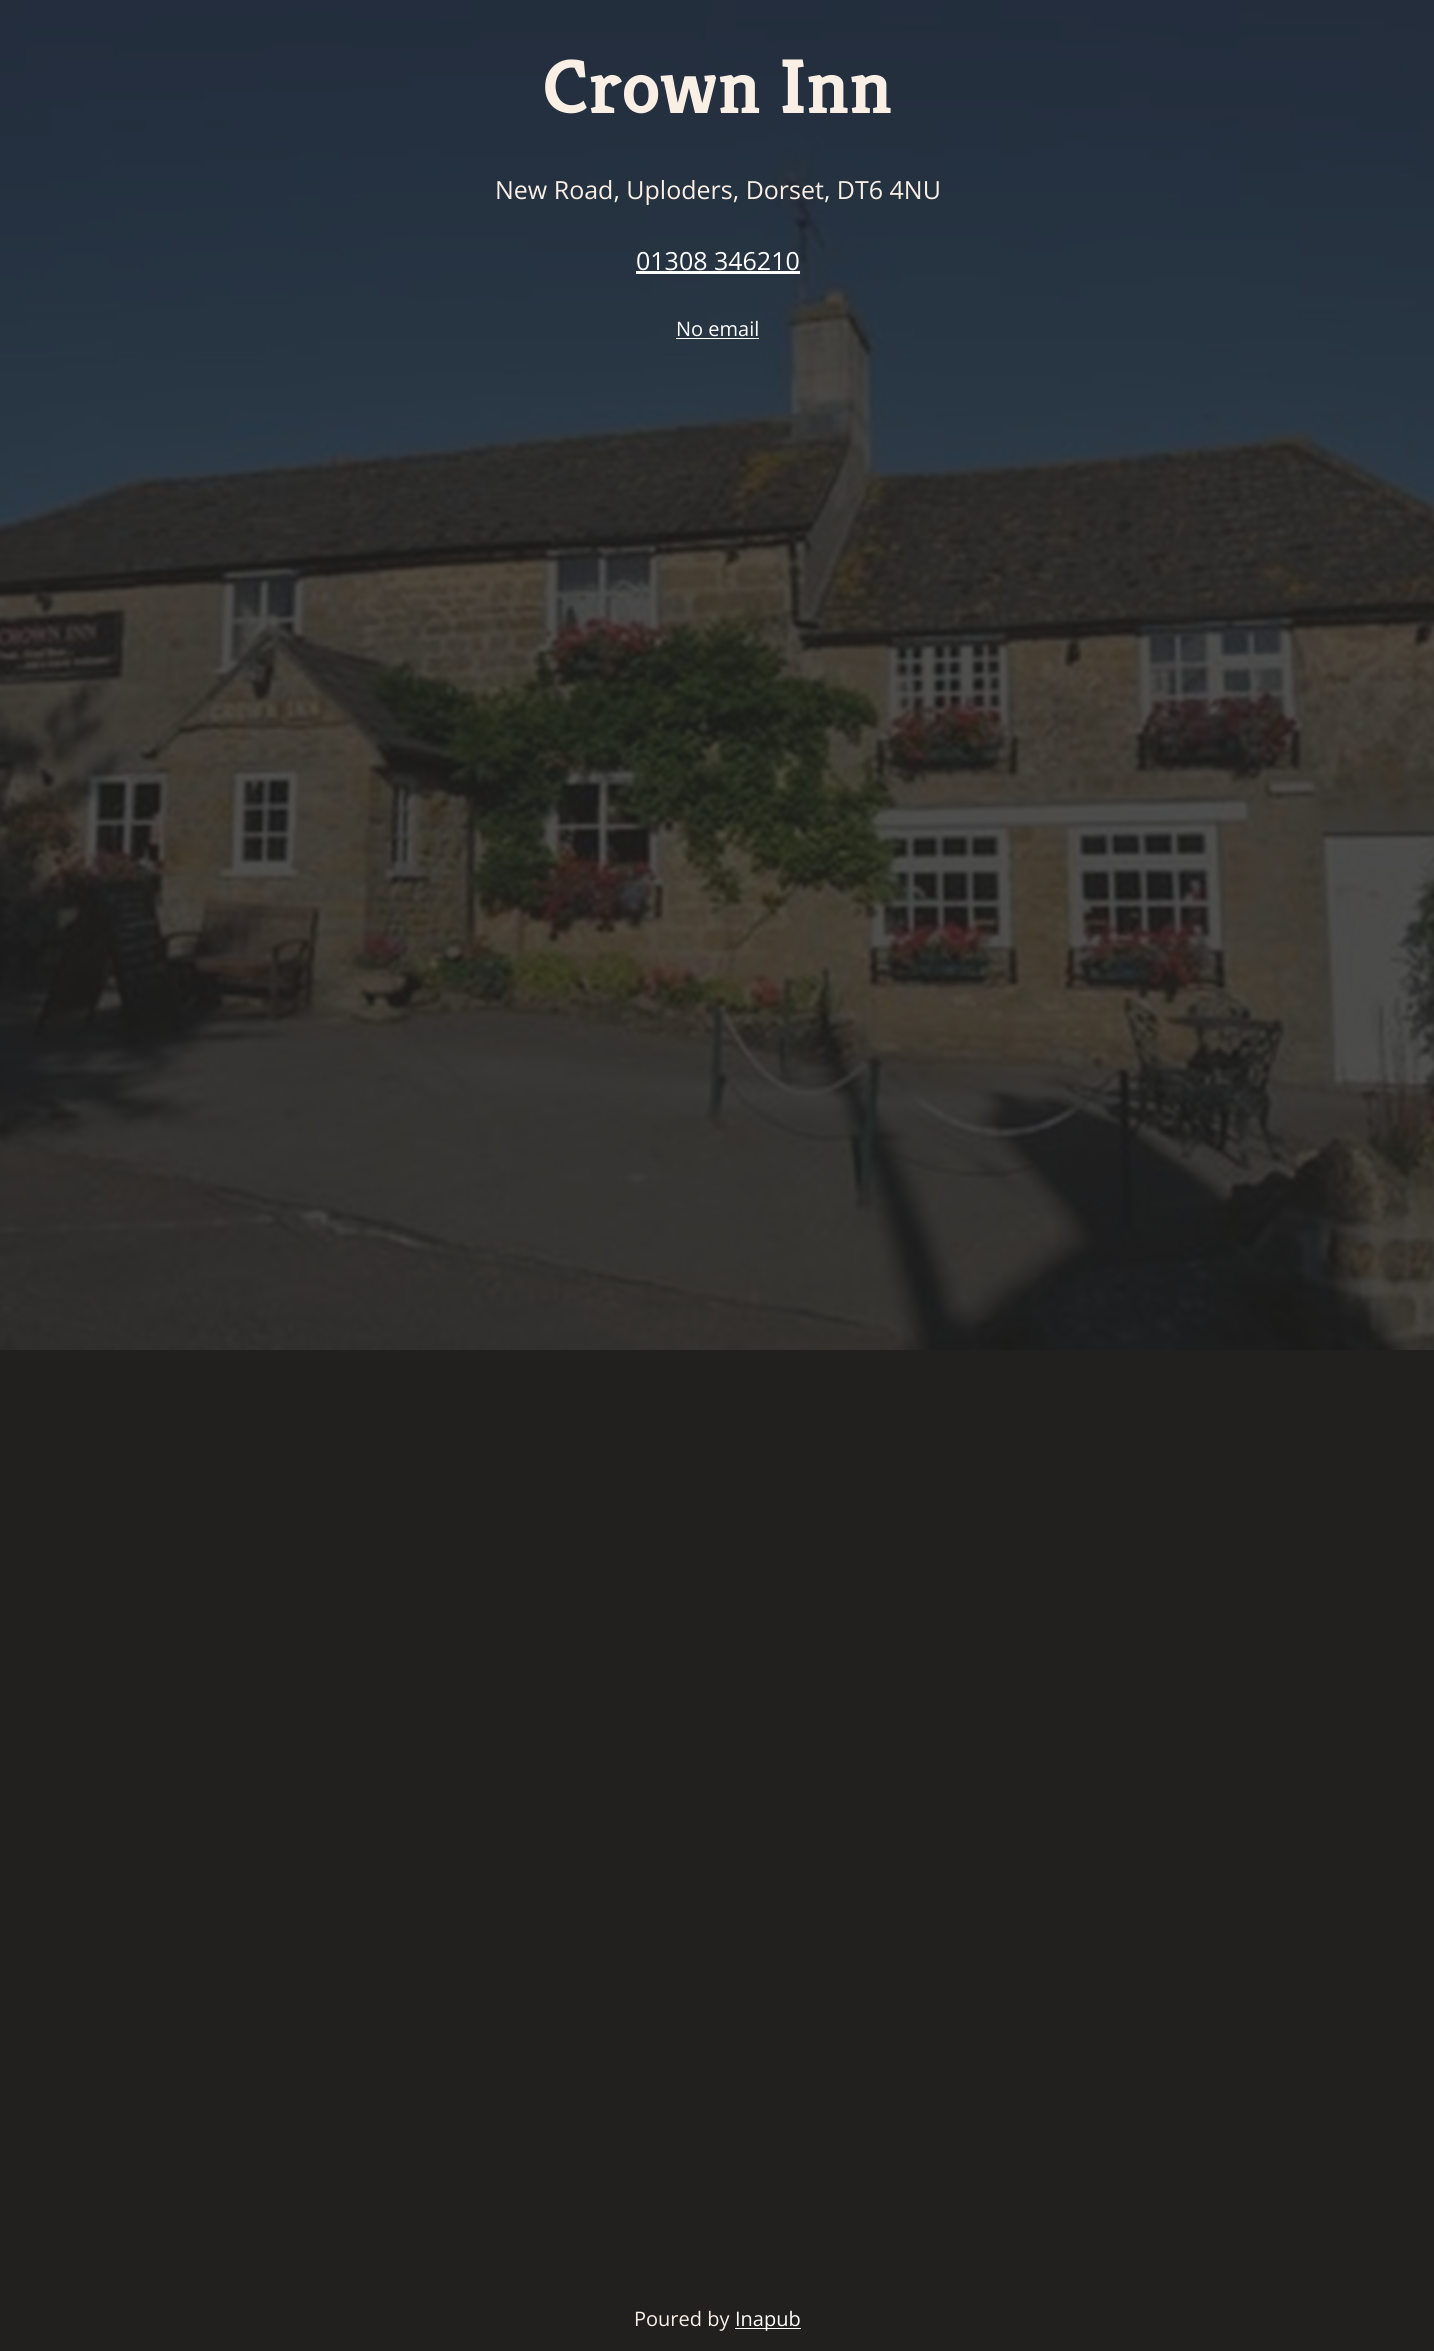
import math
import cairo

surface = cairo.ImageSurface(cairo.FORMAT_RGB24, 1434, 2351)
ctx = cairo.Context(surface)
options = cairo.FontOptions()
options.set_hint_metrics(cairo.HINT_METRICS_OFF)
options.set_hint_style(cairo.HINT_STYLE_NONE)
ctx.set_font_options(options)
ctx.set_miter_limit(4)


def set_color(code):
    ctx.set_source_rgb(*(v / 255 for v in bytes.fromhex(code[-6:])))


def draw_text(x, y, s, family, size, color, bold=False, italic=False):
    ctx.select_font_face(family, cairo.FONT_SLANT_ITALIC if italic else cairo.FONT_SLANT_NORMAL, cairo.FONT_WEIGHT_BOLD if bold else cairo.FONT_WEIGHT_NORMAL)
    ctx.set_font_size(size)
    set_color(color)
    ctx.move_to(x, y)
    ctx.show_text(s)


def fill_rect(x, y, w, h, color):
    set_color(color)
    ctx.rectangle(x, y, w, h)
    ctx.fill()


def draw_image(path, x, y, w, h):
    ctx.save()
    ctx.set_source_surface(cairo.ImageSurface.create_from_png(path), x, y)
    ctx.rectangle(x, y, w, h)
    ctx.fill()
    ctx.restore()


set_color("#21201f")
ctx.paint()
draw_image("assets/img1.png", 0, 0, 1434, 1350)
draw_text(543, 113, "Crown Inn", "Kreon Light", 77.5, "#f9efe5")
draw_text(495, 199, "New Road, Uploders, Dorset, DT6 4NU", "Open Sans", 25, "#f9efe5")
draw_text(636, 270, "01308 346210", "Open Sans", 25, "#ffffff")
fill_rect(636, 271, 164, 3, "#ffffff")
draw_text(676, 336, "No email", "Open Sans", 20, "#ffffff")
fill_rect(676, 338, 83, 1, "#ffffff")
draw_text(634, 2326, "Poured by", "Open Sans", 20, "#f9efe5")
fill_rect(735, 2328, 66, 1, "#ffffff")
draw_text(735, 2326, "Inapub", "Open Sans", 20, "#ffffff")
surface.write_to_png("output.png")
